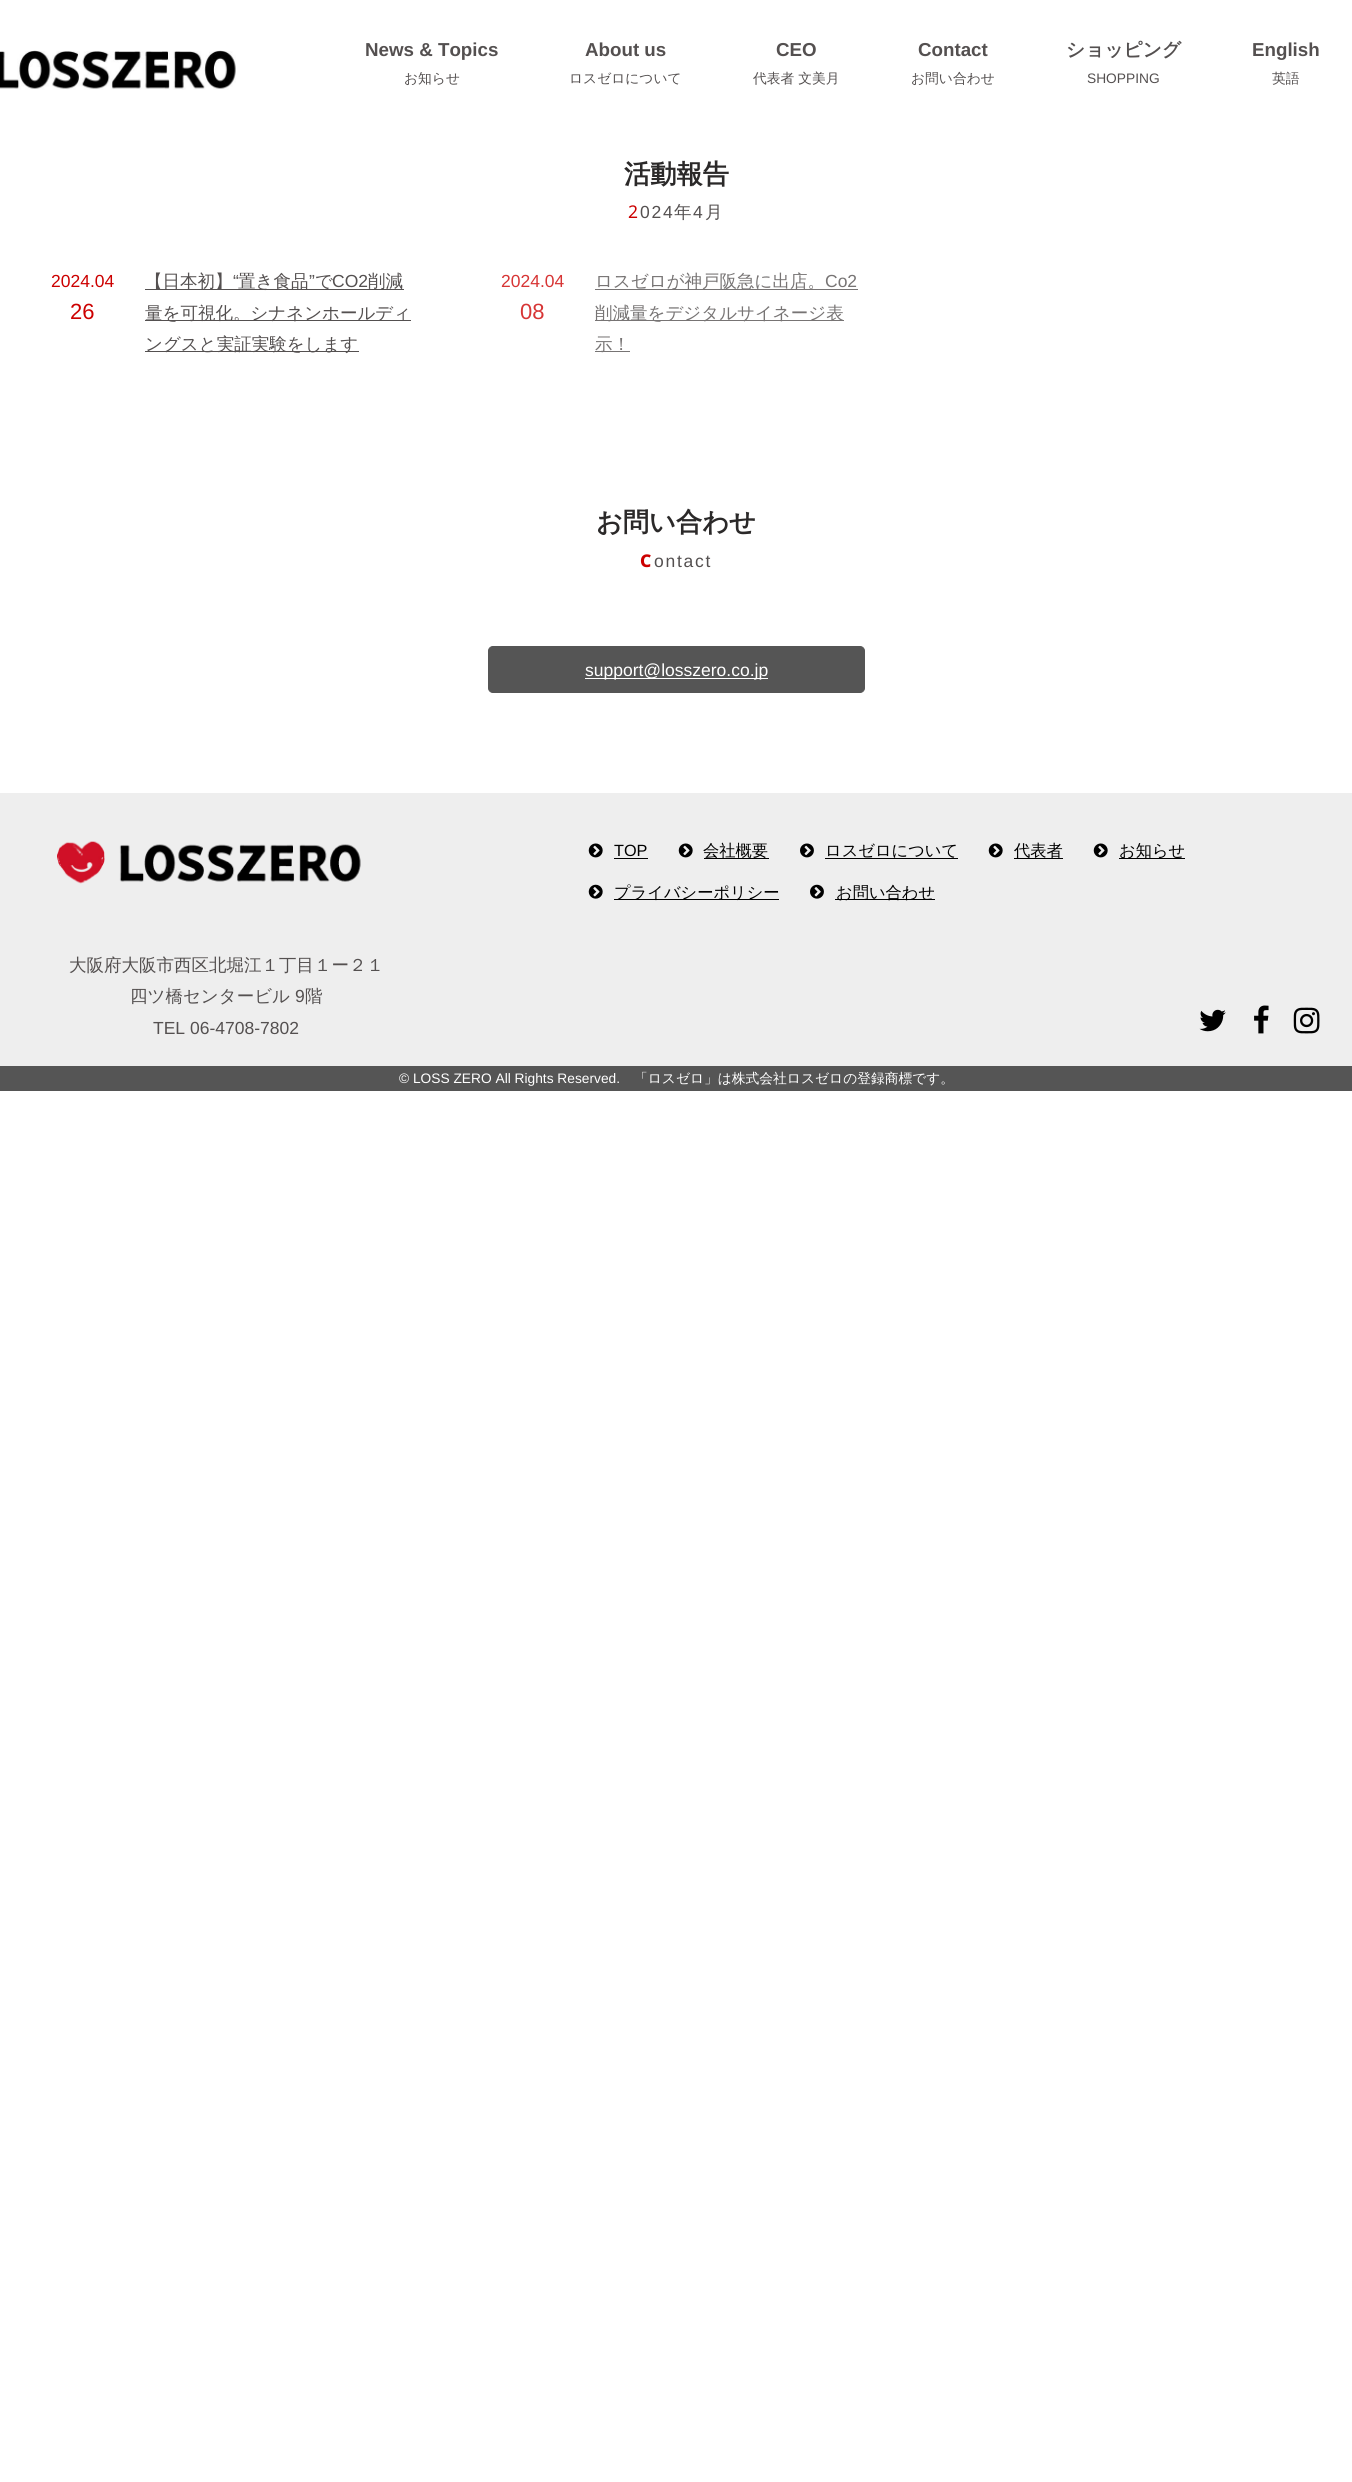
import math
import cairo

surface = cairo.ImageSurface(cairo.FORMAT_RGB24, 1352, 2482)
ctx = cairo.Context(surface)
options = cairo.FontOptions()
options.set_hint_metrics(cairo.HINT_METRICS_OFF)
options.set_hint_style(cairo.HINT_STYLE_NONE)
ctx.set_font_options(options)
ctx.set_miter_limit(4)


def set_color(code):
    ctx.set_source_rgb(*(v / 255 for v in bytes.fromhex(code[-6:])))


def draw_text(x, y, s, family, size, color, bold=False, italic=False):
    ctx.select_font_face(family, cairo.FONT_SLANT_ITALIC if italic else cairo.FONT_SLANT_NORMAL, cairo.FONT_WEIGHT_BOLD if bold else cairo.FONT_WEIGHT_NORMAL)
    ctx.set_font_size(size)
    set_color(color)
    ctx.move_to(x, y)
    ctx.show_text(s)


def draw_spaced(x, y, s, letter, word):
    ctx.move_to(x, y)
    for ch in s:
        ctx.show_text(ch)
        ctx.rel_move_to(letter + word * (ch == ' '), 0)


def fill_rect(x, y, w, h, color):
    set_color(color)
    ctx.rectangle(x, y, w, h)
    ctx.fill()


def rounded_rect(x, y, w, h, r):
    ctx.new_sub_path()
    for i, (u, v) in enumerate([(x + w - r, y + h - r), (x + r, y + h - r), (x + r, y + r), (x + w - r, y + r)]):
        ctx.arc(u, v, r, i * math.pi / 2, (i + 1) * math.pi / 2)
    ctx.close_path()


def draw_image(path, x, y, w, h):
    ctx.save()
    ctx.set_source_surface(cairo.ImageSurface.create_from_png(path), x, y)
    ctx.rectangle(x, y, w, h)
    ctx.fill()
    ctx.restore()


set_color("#ffffff")
ctx.paint()
draw_image("assets/img1.png", 0, 50, 236, 40)
draw_text(365, 56, "News & Topics", "Liberation Sans", 18.75, "#545050", bold=True)
draw_text(404, 83, "お知らせ", "WenQuanYi Zen Hei Medium", 13.75, "#545050")
draw_text(585, 56, "About us", "Liberation Sans", 18.75, "#545050", bold=True)
draw_text(569, 83, "ロスゼロについて", "WenQuanYi Zen Hei Medium", 13.75, "#545050")
draw_text(776, 56, "CEO", "Liberation Sans", 18.75, "#545050", bold=True)
draw_text(753, 83, "代表者 文美月", "WenQuanYi Zen Hei Medium", 13.75, "#545050")
draw_text(918, 56, "Contact", "Liberation Sans", 18.75, "#545050", bold=True)
draw_text(911, 83, "お問い合わせ", "WenQuanYi Zen Hei Medium", 13.75, "#545050")
draw_text(1066, 56, "ショッピング", "WenQuanYi Zen Hei", 18.75, "#545050", bold=True)
draw_text(1087, 83, "SHOPPING", "Liberation Sans", 13.75, "#545050")
draw_text(1252, 56, "English", "Liberation Sans", 18.75, "#545050", bold=True)
draw_text(1272, 83, "英語", "WenQuanYi Zen Hei Medium", 13.75, "#545050")
draw_text(624, 183, "活動報告", "WenQuanYi Zen Hei", 26.25, "#2b2929", bold=True)
ctx.select_font_face("Noto Sans")
ctx.set_font_size(17.5)
set_color("#cc0000")
draw_spaced(628, 218, "2", 1.75, 0)
ctx.select_font_face("Liberation Sans")
set_color("#545050")
draw_spaced(640, 218, "024", 1.75, 0)
ctx.select_font_face("WenQuanYi Zen Hei Medium")
draw_spaced(674, 218, "年", 1.75, 0)
ctx.select_font_face("Liberation Sans")
draw_spaced(693, 218, "4", 1.75, 0)
ctx.select_font_face("WenQuanYi Zen Hei Medium")
draw_spaced(705, 218, "月", 1.75, 0)
draw_text(51, 287, "2024.04", "Liberation Sans", 17.5, "#cc0000")
draw_text(70, 319, "26", "Liberation Sans", 22, "#cc0000")
fill_rect(145, 289, 259, 1, "#545050")
draw_text(145, 287, "【日本初】", "WenQuanYi Zen Hei Medium", 17.5, "#545050")
draw_text(233, 287, "“", "Liberation Sans", 17.5, "#545050")
draw_text(238, 287, "置き食品", "WenQuanYi Zen Hei Medium", 17.5, "#545050")
draw_text(309, 287, "”", "Liberation Sans", 17.5, "#545050")
draw_text(315, 287, "で", "WenQuanYi Zen Hei Medium", 17.5, "#545050")
draw_text(332, 287, "CO2", "Liberation Sans", 17.5, "#545050")
draw_text(368, 287, "削減", "WenQuanYi Zen Hei Medium", 17.5, "#545050")
fill_rect(145, 320, 266, 1, "#545050")
draw_text(145, 319, "量を可視化。シナネンホールディ", "WenQuanYi Zen Hei Medium", 17.5, "#545050")
fill_rect(145, 351, 214, 1, "#545050")
draw_text(145, 350, "ングスと実証実験をします", "WenQuanYi Zen Hei Medium", 17.5, "#545050")
draw_text(501, 287, "2024.04", "Liberation Sans", 17.5, "#d73535")
draw_text(520, 319, "08", "Liberation Sans", 22, "#d73535")
fill_rect(595, 289, 263, 1, "#777474")
draw_text(595, 287, "ロスゼロが神戸阪急に出店。", "WenQuanYi Zen Hei Medium", 17.5, "#777474")
draw_text(825, 287, "Co2", "Liberation Sans", 17.5, "#777474")
fill_rect(595, 320, 249, 1, "#777474")
draw_text(595, 319, "削減量をデジタルサイネージ表", "WenQuanYi Zen Hei Medium", 17.5, "#777474")
fill_rect(595, 351, 35, 1, "#777474")
draw_text(595, 350, "示！", "WenQuanYi Zen Hei Medium", 17.5, "#777474")
draw_text(596, 531, "お問い合わせ", "WenQuanYi Zen Hei", 26.25, "#2b2929", bold=True)
ctx.select_font_face("Noto Sans ExtraBold")
ctx.set_font_size(17.5)
set_color("#cc0000")
draw_spaced(640, 567, "C", 1.75, 0)
ctx.select_font_face("Liberation Sans")
set_color("#545050")
draw_spaced(654, 567, "ontact", 1.75, 0)
set_color("#555555")
rounded_rect(488.5, 646.5, 376, 46, 4.5)
ctx.fill_preserve()
ctx.set_line_width(1)
ctx.stroke()
fill_rect(585, 678, 183, 1, "#ffffff")
draw_text(585, 676, "support@losszero.co.jp", "Liberation Sans", 17.5, "#ffffff")
fill_rect(0, 793, 1352, 273, "#eeeeee")
draw_image("assets/img2.png", 588, 843, 15, 15)
draw_text(614, 856, "TOP", "Liberation Sans", 16.25, "#000000")
fill_rect(614, 858, 34, 1, "#000000")
draw_image("assets/img2.png", 678, 843, 15, 15)
fill_rect(704, 858, 65, 1, "#000000")
draw_text(703, 856, "会社概要", "WenQuanYi Zen Hei Medium", 16.25, "#000000")
draw_image("assets/img3.png", 800, 843, 14, 15)
draw_text(825, 856, "ロスゼロについて", "WenQuanYi Zen Hei Medium", 16.25, "#000000")
fill_rect(825, 858, 133, 1, "#000000")
draw_image("assets/img2.png", 988, 843, 15, 15)
fill_rect(1014, 858, 49, 1, "#000000")
draw_text(1014, 856, "代表者", "WenQuanYi Zen Hei Medium", 16.25, "#000000")
draw_image("assets/img2.png", 1093, 843, 15, 15)
fill_rect(1119, 858, 66, 1, "#000000")
draw_text(1119, 856, "お知らせ", "WenQuanYi Zen Hei Medium", 16.25, "#000000")
draw_image("assets/img4.png", 588, 884, 15, 15)
fill_rect(614, 899, 165, 1, "#000000")
draw_text(614, 898, "プライバシーポリシー", "WenQuanYi Zen Hei Medium", 16.25, "#000000")
draw_image("assets/img5.png", 810, 884, 14, 15)
fill_rect(835, 899, 100, 1, "#000000")
draw_text(836, 898, "お問い合わせ", "WenQuanYi Zen Hei Medium", 16.25, "#000000")
draw_image("assets/img6.png", 57, 841, 304, 43)
draw_text(69, 971, "大阪府大阪市西区北堀江１丁目１ー２１", "WenQuanYi Zen Hei Medium", 17.5, "#545050")
draw_text(130, 1002, "四ツ橋センタービル", "WenQuanYi Zen Hei Medium", 17.5, "#545050")
draw_text(295, 1002, "9", "Liberation Sans", 17.5, "#545050")
draw_text(305, 1002, "階", "WenQuanYi Zen Hei Medium", 17.5, "#545050")
draw_text(153, 1034, "TEL 06-4708-7802", "Liberation Sans", 17.5, "#545050")
draw_image("assets/img7.png", 1199, 1009, 27, 23)
draw_image("assets/img8.png", 1254, 1005, 15, 29)
draw_image("assets/img9.png", 1293, 1007, 27, 27)
fill_rect(0, 1066, 1352, 25, "#555555")
draw_text(399, 1083, "© LOSS ZERO All Rights Reserved.", "Liberation Sans", 13.75, "#ffffff")
draw_text(634, 1083, "「ロスゼロ」は株式会社ロスゼロの登録商標です。", "WenQuanYi Zen Hei Medium", 13.75, "#ffffff")
surface.write_to_png("output.png")
